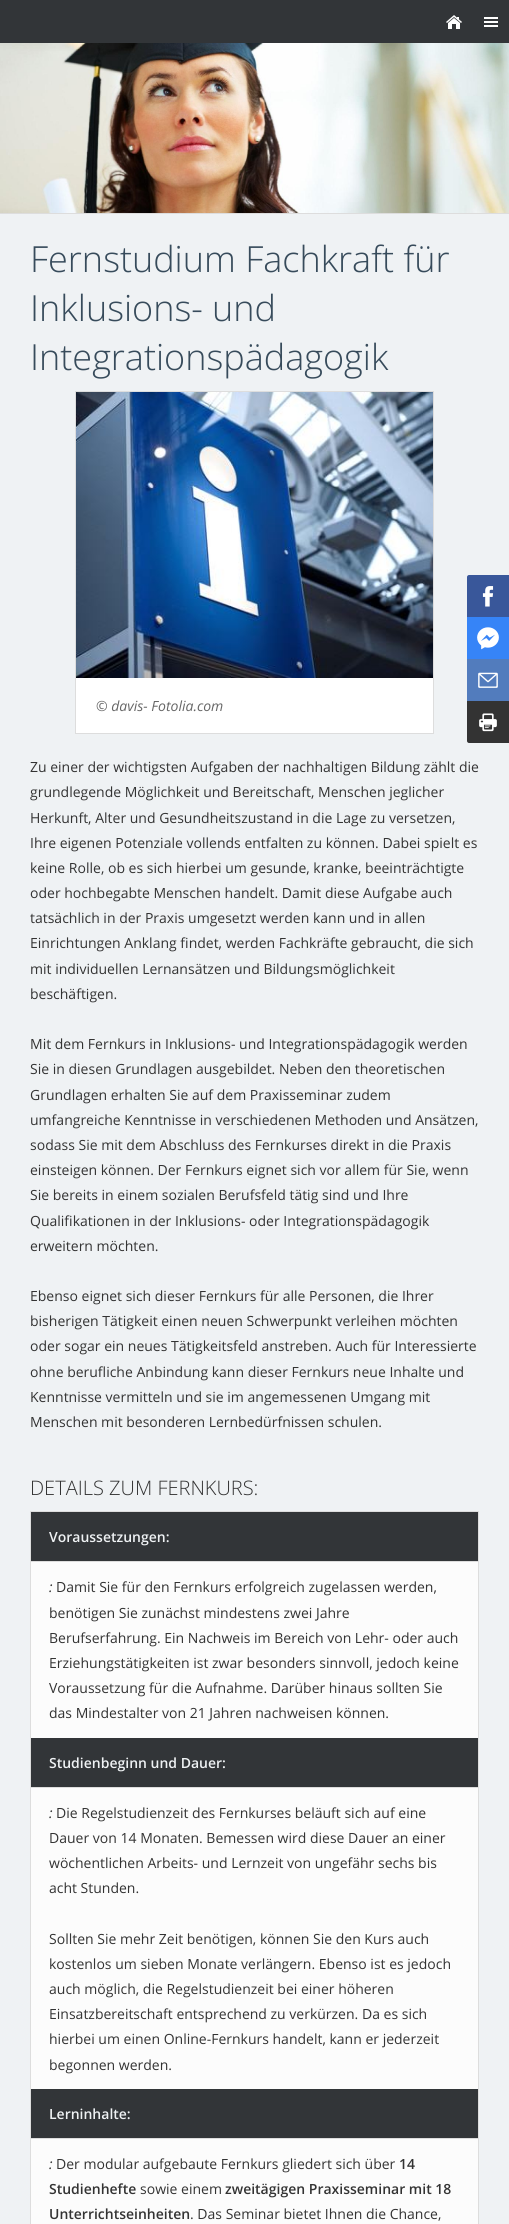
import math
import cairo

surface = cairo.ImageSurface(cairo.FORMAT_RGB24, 509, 2224)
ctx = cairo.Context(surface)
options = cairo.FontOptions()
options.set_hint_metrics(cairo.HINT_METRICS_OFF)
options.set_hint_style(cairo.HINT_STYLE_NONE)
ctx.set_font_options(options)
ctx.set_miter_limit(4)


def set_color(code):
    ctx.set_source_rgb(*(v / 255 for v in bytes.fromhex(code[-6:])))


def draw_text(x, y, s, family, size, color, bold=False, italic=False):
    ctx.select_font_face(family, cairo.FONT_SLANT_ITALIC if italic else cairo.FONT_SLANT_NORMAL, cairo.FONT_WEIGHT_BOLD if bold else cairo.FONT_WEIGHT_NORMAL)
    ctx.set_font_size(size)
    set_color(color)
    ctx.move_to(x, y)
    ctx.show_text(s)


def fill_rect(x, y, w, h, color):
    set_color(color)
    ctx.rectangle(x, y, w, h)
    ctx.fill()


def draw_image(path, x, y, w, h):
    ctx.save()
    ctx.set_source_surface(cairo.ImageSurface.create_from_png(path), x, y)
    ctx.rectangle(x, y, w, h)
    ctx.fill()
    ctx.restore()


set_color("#323538")
ctx.paint()
draw_image("assets/img1.png", 446, 15, 16, 14)
draw_image("assets/img2.png", 484, 17, 14, 10)
fill_rect(0, 214, 509, 2010, "#eff2f4")
fill_rect(0, 213, 509, 1, "#dddddd")
draw_image("assets/img3.png", 0, 43, 509, 170)
draw_text(30, 272, "Fernstudium Fachkraft für", "Open Sans Light", 36, "#374b5b")
draw_text(30, 321, "Inklusions- und", "Open Sans Light", 36, "#374b5b")
draw_text(30, 370, "Integrationspädagogik", "Open Sans Light", 36, "#374b5b")
fill_rect(76, 678, 357, 55, "#ffffff")
ctx.rectangle(75.5, 391.5, 358, 342)
set_color("#dddddd")
ctx.set_line_width(1)
ctx.stroke()
draw_image("assets/img4.png", 76, 392, 357, 286)
draw_text(96, 711, "© davis- Fotolia.com", "Open Sans", 14, "#666666", italic=True)
draw_text(30, 772, "Zu einer der wichtigsten Aufgaben der nachhaltigen Bildung zählt die", "Open Sans", 14, "#333333")
draw_text(30, 797, "grundlegende Möglichkeit und Bereitschaft, Menschen jeglicher", "Open Sans", 14, "#333333")
draw_text(30, 823, "Herkunft, Alter und Gesundheitszustand in die Lage zu versetzen,", "Open Sans", 14, "#333333")
draw_text(30, 848, "Ihre eigenen Potenziale vollends entfalten zu können. Dabei spielt es", "Open Sans", 14, "#333333")
draw_text(30, 873, "keine Rolle, ob es sich hierbei um gesunde, kranke, beeinträchtigte", "Open Sans", 14, "#333333")
draw_text(30, 898, "oder hochbegabte Menschen handelt. Damit diese Aufgabe auch", "Open Sans", 14, "#333333")
draw_text(30, 923, "tatsächlich in der Praxis umgesetzt werden kann und in allen", "Open Sans", 14, "#333333")
draw_text(30, 948, "Einrichtungen Anklang findet, werden Fachkräfte gebraucht, die sich", "Open Sans", 14, "#333333")
draw_text(30, 974, "mit individuellen Lernansätzen und Bildungsmöglichkeit", "Open Sans", 14, "#333333")
draw_text(30, 999, "beschäftigen.", "Open Sans", 14, "#333333")
draw_text(30, 1049, "Mit dem Fernkurs in Inklusions- und Integrationspädagogik werden", "Open Sans", 14, "#333333")
draw_text(30, 1074, "Sie in diesen Grundlagen ausgebildet. Neben den theoretischen", "Open Sans", 14, "#333333")
draw_text(30, 1100, "Grundlagen erhalten Sie auf dem Praxisseminar zudem", "Open Sans", 14, "#333333")
draw_text(30, 1125, "umfangreiche Kenntnisse in verschiedenen Methoden und Ansätzen,", "Open Sans", 14, "#333333")
draw_text(30, 1150, "sodass Sie mit dem Abschluss des Fernkurses direkt in die Praxis", "Open Sans", 14, "#333333")
draw_text(30, 1175, "einsteigen können. Der Fernkurs eignet sich vor allem für Sie, wenn", "Open Sans", 14, "#333333")
draw_text(30, 1200, "Sie bereits in einem sozialen Berufsfeld tätig sind und Ihre", "Open Sans", 14, "#333333")
draw_text(30, 1226, "Qualifikationen in der Inklusions- oder Integrationspädagogik", "Open Sans", 14, "#333333")
draw_text(30, 1251, "erweitern möchten.", "Open Sans", 14, "#333333")
draw_text(30, 1301, "Ebenso eignet sich dieser Fernkurs für alle Personen, die Ihrer", "Open Sans", 14, "#333333")
draw_text(30, 1326, "bisherigen Tätigkeit einen neuen Schwerpunkt verleihen möchten", "Open Sans", 14, "#333333")
draw_text(30, 1351, "oder sogar ein neues Tätigkeitsfeld anstreben. Auch für Interessierte", "Open Sans", 14, "#333333")
draw_text(30, 1377, "ohne berufliche Anbindung kann dieser Fernkurs neue Inhalte und", "Open Sans", 14, "#333333")
draw_text(30, 1402, "Kenntnisse vermitteln und sie im angemessenen Umgang mit", "Open Sans", 14, "#333333")
draw_text(30, 1427, "Menschen mit besonderen Lernbedürfnissen schulen.", "Open Sans", 14, "#333333")
draw_text(30, 1495, "DETAILS ZUM FERNKURS:", "Open Sans Light", 20, "#333333")
fill_rect(30, 1511, 449, 1, "#dddddd")
fill_rect(478, 1511, 1, 713, "#dddddd")
fill_rect(30, 1511, 1, 713, "#dddddd")
fill_rect(31, 1512, 447, 49, "#323538")
draw_text(49, 1542, "Voraussetzungen:", "Open Sans SemiBold", 14, "#eff2f4")
fill_rect(31, 1562, 447, 176, "#fcfcfc")
fill_rect(31, 1561, 447, 1, "#dddddd")
draw_text(49, 1592, ":", "Open Sans", 14, "#333333", italic=True)
draw_text(56, 1592, "Damit Sie für den Fernkurs erfolgreich zugelassen werden,", "Open Sans", 14, "#333333")
draw_text(49, 1618, "benötigen Sie zunächst mindestens zwei Jahre", "Open Sans", 14, "#333333")
draw_text(49, 1643, "Berufserfahrung. Ein Nachweis im Bereich von Lehr- oder auch", "Open Sans", 14, "#333333")
draw_text(49, 1668, "Erziehungstätigkeiten ist zwar besonders sinnvoll, jedoch keine", "Open Sans", 14, "#333333")
draw_text(49, 1693, "Voraussetzung für die Aufnahme. Darüber hinaus sollten Sie", "Open Sans", 14, "#333333")
draw_text(49, 1718, "das Mindestalter von 21 Jahren nachweisen können.", "Open Sans", 14, "#333333")
fill_rect(31, 1738, 447, 49, "#323538")
draw_text(49, 1768, "Studienbeginn und Dauer:", "Open Sans SemiBold", 14, "#eff2f4")
fill_rect(31, 1788, 447, 301, "#fcfcfc")
fill_rect(31, 1787, 447, 1, "#dddddd")
draw_text(49, 1818, ":", "Open Sans", 14, "#333333", italic=True)
draw_text(56, 1818, "Die Regelstudienzeit des Fernkurses beläuft sich auf eine", "Open Sans", 14, "#333333")
draw_text(49, 1843, "Dauer von 14 Monaten. Bemessen wird diese Dauer an einer", "Open Sans", 14, "#333333")
draw_text(49, 1868, "wöchentlichen Arbeits- und Lernzeit von ungefähr sechs bis", "Open Sans", 14, "#333333")
draw_text(49, 1893, "acht Stunden.", "Open Sans", 14, "#333333")
draw_text(49, 1944, "Sollten Sie mehr Zeit benötigen, können Sie den Kurs auch", "Open Sans", 14, "#333333")
draw_text(49, 1969, "kostenlos um sieben Monate verlängern. Ebenso ist es jedoch", "Open Sans", 14, "#333333")
draw_text(49, 1994, "auch möglich, die Regelstudienzeit bei einer höheren", "Open Sans", 14, "#333333")
draw_text(49, 2019, "Einsatzbereitschaft entsprechend zu verkürzen. Da es sich", "Open Sans", 14, "#333333")
draw_text(49, 2044, "hierbei um einen Online-Fernkurs handelt, kann er jederzeit", "Open Sans", 14, "#333333")
draw_text(49, 2070, "begonnen werden.", "Open Sans", 14, "#333333")
fill_rect(31, 2089, 447, 49, "#323538")
draw_text(49, 2119, "Lerninhalte:", "Open Sans SemiBold", 14, "#eff2f4")
fill_rect(31, 2139, 447, 85, "#fcfcfc")
fill_rect(31, 2138, 447, 1, "#dddddd")
draw_text(49, 2169, ":", "Open Sans", 14, "#333333", italic=True)
draw_text(56, 2169, "Der modular aufgebaute Fernkurs gliedert sich über", "Open Sans", 14, "#333333")
draw_text(399, 2169, "14", "Open Sans SemiBold", 14, "#333333")
draw_text(49, 2194, "Studienhefte", "Open Sans SemiBold", 14, "#333333")
draw_text(140, 2194, "sowie einem", "Open Sans", 14, "#333333")
draw_text(225, 2194, "zweitägigen Praxisseminar mit 18", "Open Sans SemiBold", 14, "#333333")
draw_text(49, 2219, "Unterrichtseinheiten", "Open Sans SemiBold", 14, "#333333")
draw_text(190, 2219, ". Das Seminar bietet Ihnen die Chance,", "Open Sans", 14, "#333333")
set_color("#39579a")
ctx.new_path()
ctx.move_to(469, 575)
ctx.line_to(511, 575)
ctx.line_to(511, 617)
ctx.line_to(467, 617)
ctx.line_to(467, 577)
ctx.curve_to(467, 576, 468, 575, 469, 575)
ctx.close_path()
ctx.fill()
draw_image("assets/img5.png", 482, 586, 12, 21)
fill_rect(467, 617, 42, 42, "#3684f7")
draw_image("assets/img6.png", 477, 627, 22, 23)
fill_rect(467, 659, 42, 42, "#527cbd")
draw_image("assets/img7.png", 478, 672, 20, 16)
set_color("#333333")
ctx.new_path()
ctx.move_to(467, 701)
ctx.line_to(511, 701)
ctx.line_to(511, 743)
ctx.line_to(469, 743)
ctx.curve_to(468, 743, 467, 742, 467, 741)
ctx.close_path()
ctx.fill()
draw_image("assets/img8.png", 479, 713, 18, 19)
surface.write_to_png("output.png")
